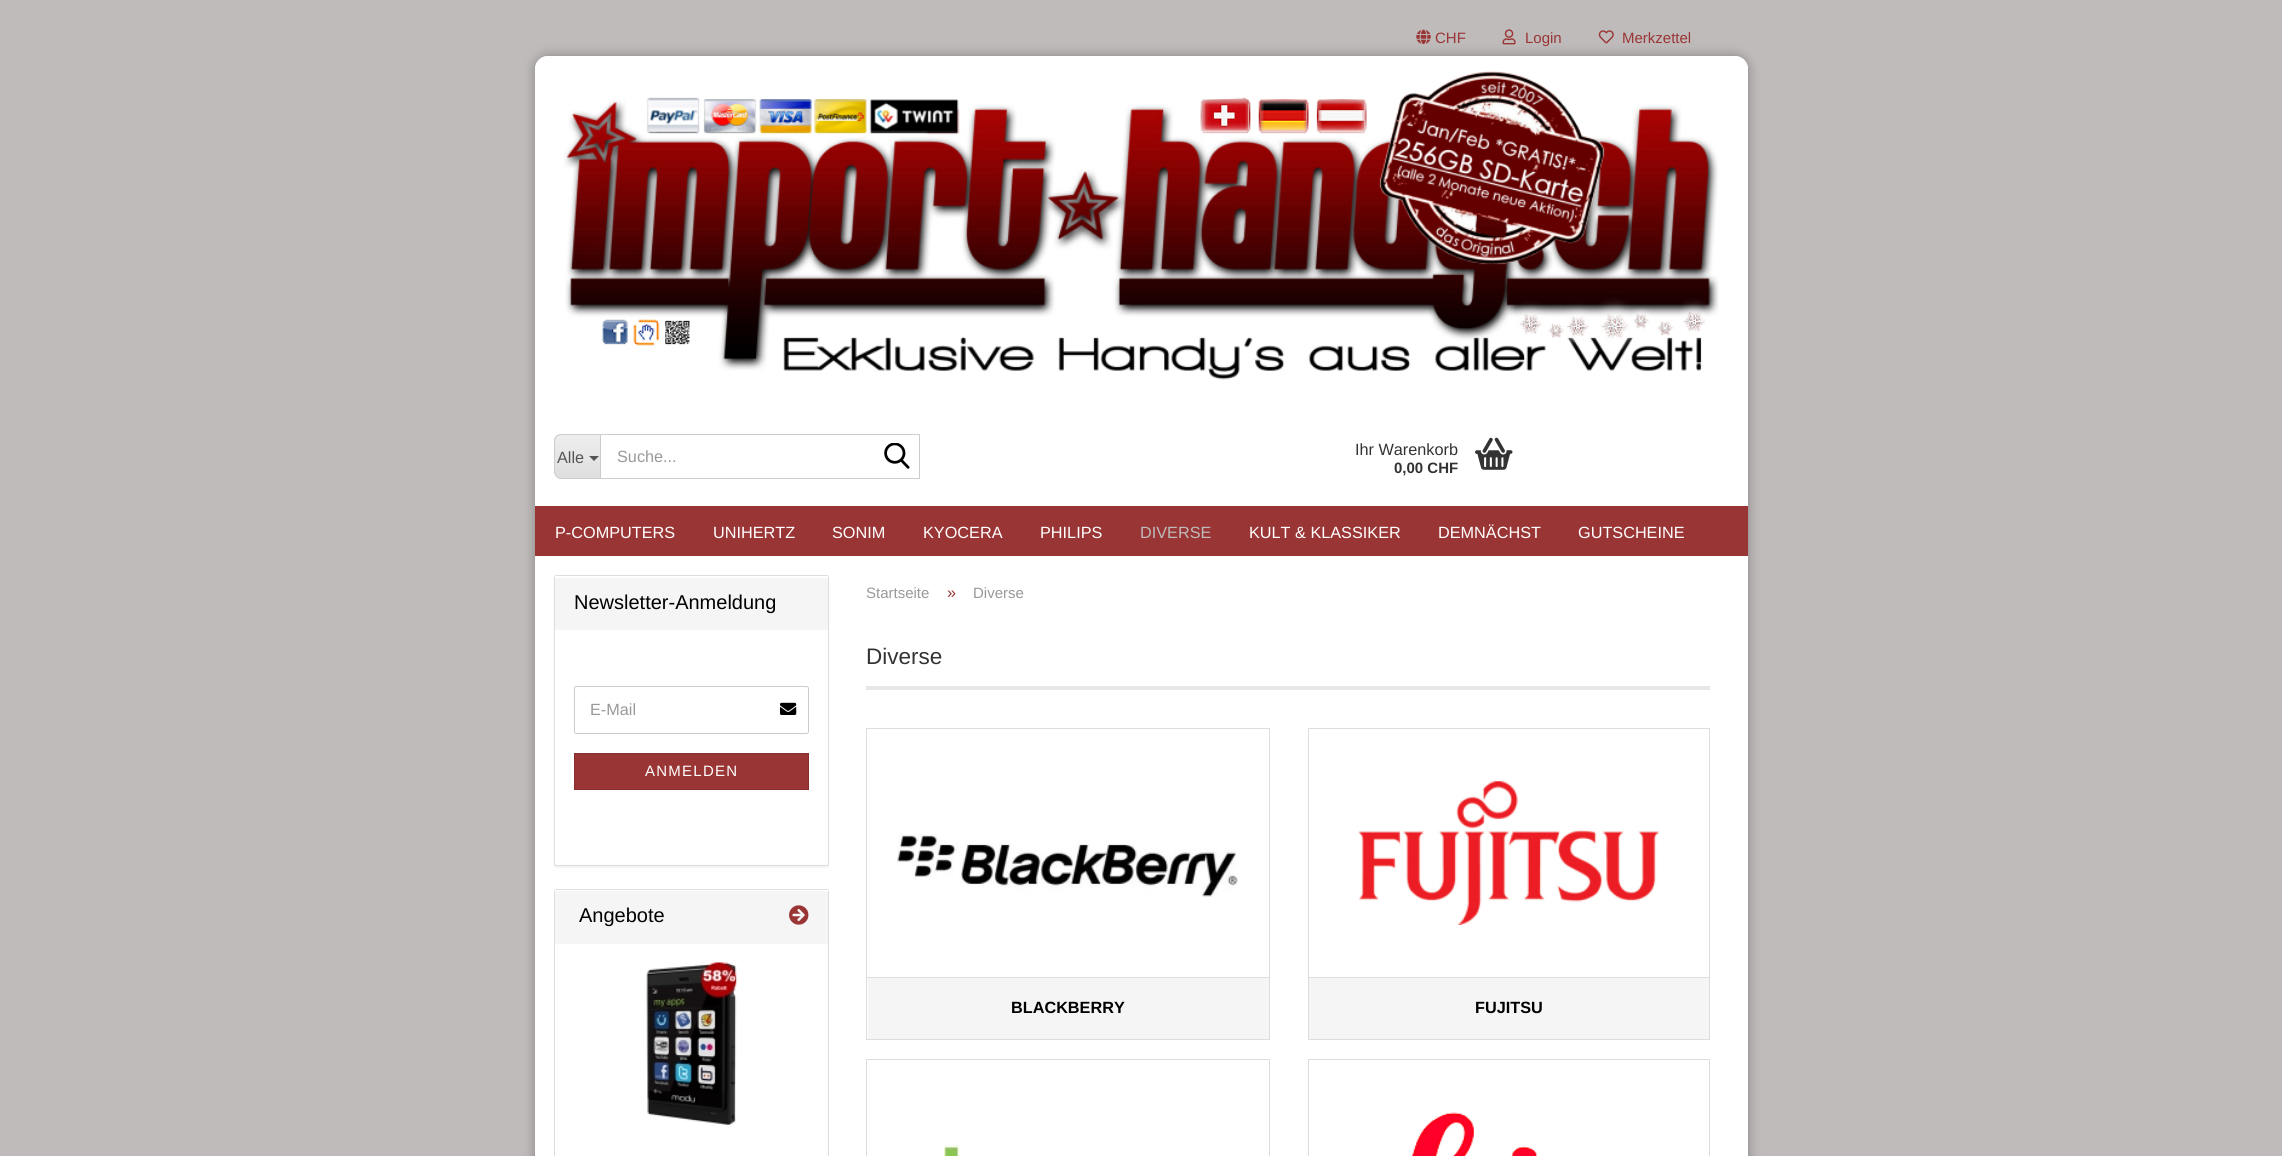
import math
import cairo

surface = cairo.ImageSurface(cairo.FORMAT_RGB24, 2282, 1156)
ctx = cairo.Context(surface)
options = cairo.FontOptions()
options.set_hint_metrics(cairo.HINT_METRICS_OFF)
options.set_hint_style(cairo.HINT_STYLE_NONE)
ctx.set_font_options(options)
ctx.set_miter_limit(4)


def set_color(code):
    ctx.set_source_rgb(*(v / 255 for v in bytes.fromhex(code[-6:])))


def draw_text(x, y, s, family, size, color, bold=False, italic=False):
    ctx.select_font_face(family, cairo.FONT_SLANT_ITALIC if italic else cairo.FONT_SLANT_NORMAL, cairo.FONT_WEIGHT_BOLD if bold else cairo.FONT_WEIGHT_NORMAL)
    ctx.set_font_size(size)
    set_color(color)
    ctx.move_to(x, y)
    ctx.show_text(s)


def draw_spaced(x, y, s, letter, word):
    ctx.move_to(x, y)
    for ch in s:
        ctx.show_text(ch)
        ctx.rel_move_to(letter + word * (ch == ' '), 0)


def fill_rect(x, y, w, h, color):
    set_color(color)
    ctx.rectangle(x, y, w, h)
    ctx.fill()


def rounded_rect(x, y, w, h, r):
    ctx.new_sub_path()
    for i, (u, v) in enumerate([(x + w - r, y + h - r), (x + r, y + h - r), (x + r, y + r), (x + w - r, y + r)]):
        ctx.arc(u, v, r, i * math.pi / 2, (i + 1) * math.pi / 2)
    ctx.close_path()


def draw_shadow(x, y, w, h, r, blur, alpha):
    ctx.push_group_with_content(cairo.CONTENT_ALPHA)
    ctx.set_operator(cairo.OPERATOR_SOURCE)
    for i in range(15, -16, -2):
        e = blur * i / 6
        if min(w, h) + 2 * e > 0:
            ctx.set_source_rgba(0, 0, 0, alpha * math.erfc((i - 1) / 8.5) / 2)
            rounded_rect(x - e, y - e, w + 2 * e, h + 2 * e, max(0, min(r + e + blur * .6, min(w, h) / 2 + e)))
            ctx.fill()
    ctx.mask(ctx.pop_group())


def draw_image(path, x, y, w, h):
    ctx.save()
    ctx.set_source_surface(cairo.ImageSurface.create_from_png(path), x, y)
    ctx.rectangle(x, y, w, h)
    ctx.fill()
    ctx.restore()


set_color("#bfbbbb")
ctx.paint()
set_color("#000000")
draw_shadow(535, 56, 1213, 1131, 13, 6, 0.3)
set_color("#ffffff")
rounded_rect(535, 56, 1213, 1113, 13)
ctx.fill()
ctx.new_path()
ctx.move_to(548, 56)
ctx.line_to(1735, 56)
ctx.curve_to(1742, 56, 1748, 62, 1748, 69)
ctx.line_to(1748, 553.5)
ctx.curve_to(1748, 555, 1747, 556, 1745.5, 556)
ctx.line_to(537.5, 556)
ctx.curve_to(536, 556, 535, 555, 535, 553.5)
ctx.line_to(535, 69)
ctx.curve_to(535, 62, 541, 56, 548, 56)
ctx.close_path()
ctx.fill()
draw_image("assets/img1.png", 1416, 29, 15, 16)
draw_text(1435, 43, "CHF", "Liberation Sans", 15, "#9a3535")
draw_image("assets/img2.png", 1502, 29, 14, 16)
draw_text(1525, 43, "Login", "Liberation Sans", 15, "#9a3535")
draw_image("assets/img3.png", 1598, 30, 16, 14)
draw_text(1622, 43, "Merkzettel", "Liberation Sans", 15, "#9a3535")
draw_image("assets/img4.png", 564, 71, 1155, 309)
ctx.save()
ctx.new_path()
ctx.move_to(562, 434)
ctx.line_to(600, 434)
ctx.line_to(600, 479)
ctx.line_to(562, 479)
ctx.curve_to(557.5, 479, 554, 475.5, 554, 471)
ctx.line_to(554, 442)
ctx.curve_to(554, 437.5, 557.5, 434, 562, 434)
ctx.close_path()
ctx.clip()
gradient = cairo.LinearGradient(578, 435, 578, 478)
gradient.add_color_stop_rgba(0, 0.933, 0.933, 0.933, 1)
gradient.add_color_stop_rgba(1, 0.871, 0.871, 0.871, 1)
ctx.set_source(gradient)
ctx.rectangle(554, 435, 46, 43)
ctx.fill()
ctx.restore()
set_color("#cccccc")
ctx.set_fill_rule(cairo.FILL_RULE_EVEN_ODD)
ctx.new_path()
ctx.move_to(561, 434)
ctx.line_to(600, 434)
ctx.line_to(600, 479)
ctx.line_to(561, 479)
ctx.curve_to(557, 479, 554, 475, 554, 471)
ctx.line_to(554, 441)
ctx.curve_to(554, 437, 557, 434, 561, 434)
ctx.close_path()
ctx.move_to(561, 435)
ctx.line_to(600, 435)
ctx.line_to(600, 478)
ctx.line_to(561, 478)
ctx.curve_to(558, 478, 555, 475, 555, 471)
ctx.line_to(555, 441)
ctx.curve_to(555, 438, 558, 435, 561, 435)
ctx.close_path()
ctx.fill()
draw_text(557, 463, "Alle", "Liberation Sans", 16.25, "#555555")
ctx.set_fill_rule(cairo.FILL_RULE_WINDING)
ctx.new_path()
ctx.move_to(589, 456)
ctx.line_to(599, 456)
ctx.line_to(594, 461)
ctx.close_path()
ctx.fill()
ctx.rectangle(600.5, 434.5, 319, 44)
set_color("#cccccc")
ctx.set_line_width(1)
ctx.stroke()
draw_text(617, 462, "Suche...", "Liberation Sans", 16.25, "#999999")
draw_image("assets/img5.png", 884, 443, 26, 26)
draw_text(1355, 455, "Ihr Warenkorb", "Liberation Sans", 16.25, "#333333")
draw_text(1394, 473, "0,00 CHF", "Liberation Sans", 15, "#333333", bold=True)
draw_image("assets/img6.png", 1475, 437, 38, 33)
fill_rect(535, 506, 1213, 50, "#9a3535")
draw_text(555, 538, "P-COMPUTERS", "Liberation Sans", 16.25, "#ffffff")
draw_text(713, 538, "UNIHERTZ", "Liberation Sans", 16.25, "#ffffff")
draw_text(832, 538, "SONIM", "Liberation Sans", 16.25, "#ffffff")
draw_text(923, 538, "KYOCERA", "Liberation Sans", 16.25, "#ffffff")
draw_text(1040, 538, "PHILIPS", "Liberation Sans", 16.25, "#ffffff")
draw_text(1140, 538, "DIVERSE", "Liberation Sans", 16.25, "#bfbbbb")
draw_text(1249, 538, "KULT & KLASSIKER", "Liberation Sans", 16.25, "#ffffff")
draw_text(1438, 538, "DEMNÄCHST", "Liberation Sans", 16.25, "#ffffff")
draw_text(1578, 538, "GUTSCHEINE", "Liberation Sans", 16.25, "#ffffff")
set_color("#000000")
draw_shadow(554, 576, 275, 292, 2.5, 0.5, 0.05)
set_color("#ffffff")
rounded_rect(554.5, 575.5, 274, 290, 2)
ctx.fill_preserve()
set_color("#dddddd")
ctx.stroke()
set_color("#f5f5f5")
ctx.new_path()
ctx.move_to(556, 576)
ctx.line_to(827, 576)
ctx.curve_to(827.5, 576, 828, 576.5, 828, 577)
ctx.line_to(828, 630)
ctx.line_to(555, 630)
ctx.line_to(555, 577)
ctx.curve_to(555, 576.5, 555.5, 576, 556, 576)
ctx.close_path()
ctx.fill()
set_color("#ffffff")
ctx.new_path()
ctx.move_to(556, 578)
ctx.line_to(826, 578)
ctx.curve_to(827, 578, 828, 578, 828, 579)
ctx.line_to(828, 576)
ctx.line_to(556, 576)
ctx.curve_to(555, 576, 555, 578, 555, 579)
ctx.close_path()
ctx.fill()
draw_text(574, 609, "Newsletter-Anmeldung", "Liberation Sans", 20, "#000000")
rounded_rect(574.5, 686.5, 234, 47, 2)
set_color("#cccccc")
ctx.stroke()
draw_text(590, 715, "E-Mail", "Liberation Sans", 16.25, "#999999")
draw_image("assets/img7.png", 780, 702, 17, 13)
set_color("#9a3535")
ctx.rectangle(574.5, 753.5, 234, 36)
ctx.fill_preserve()
set_color("#872e2e")
ctx.stroke()
ctx.set_font_size(15)
set_color("#ffffff")
draw_spaced(645, 776, "ANMELDEN", 1.25, 0)
rounded_rect(554.5, 889.5, 274, 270, 2)
set_color("#dddddd")
ctx.stroke()
set_color("#f5f5f5")
ctx.new_path()
ctx.move_to(556, 890)
ctx.line_to(827, 890)
ctx.curve_to(827.5, 890, 828, 890.5, 828, 891)
ctx.line_to(828, 944)
ctx.line_to(555, 944)
ctx.line_to(555, 891)
ctx.curve_to(555, 890.5, 555.5, 890, 556, 890)
ctx.close_path()
ctx.fill()
set_color("#ffffff")
ctx.new_path()
ctx.move_to(556, 891)
ctx.line_to(826, 891)
ctx.line_to(828, 892)
ctx.curve_to(828, 891, 828, 890, 827, 890)
ctx.line_to(556, 890)
ctx.line_to(555, 890)
ctx.line_to(555, 892)
ctx.close_path()
ctx.fill()
draw_text(579, 922, "Angebote", "Liberation Sans", 20, "#000000")
draw_image("assets/img8.png", 789, 905, 20, 20)
draw_image("assets/img9.png", 646, 962, 91, 163)
draw_text(866, 598, "Startseite", "Liberation Sans", 15, "#999999")
draw_text(947, 598, "»", "Liberation Sans", 16.25, "#9a3535")
draw_text(973, 598, "Diverse", "Liberation Sans", 15, "#999999")
fill_rect(866, 686, 844, 4, "#e7e7e7")
draw_text(866, 664, "Diverse", "Liberation Sans", 22.5, "#333333")
ctx.rectangle(866.5, 728.5, 403, 249)
set_color("#dddddd")
ctx.stroke()
draw_image("assets/img10.png", 897, 834, 341, 63)
fill_rect(868, 978, 401, 61, "#f5f5f5")
fill_rect(1269, 978, 1, 62, "#dddddd")
fill_rect(866, 1039, 404, 1, "#dddddd")
fill_rect(866, 978, 1, 62, "#dddddd")
draw_text(1011, 1013, "BLACKBERRY", "Liberation Sans", 16.25, "#000000", bold=True)
ctx.rectangle(1308.5, 728.5, 401, 249)
set_color("#dddddd")
ctx.stroke()
draw_image("assets/img11.png", 1358, 781, 301, 144)
fill_rect(1309, 978, 400, 61, "#f5f5f5")
fill_rect(1709, 978, 1, 62, "#dddddd")
fill_rect(1308, 1039, 402, 1, "#dddddd")
fill_rect(1308, 978, 1, 62, "#dddddd")
draw_text(1475, 1013, "FUJITSU", "Liberation Sans", 16.25, "#000000", bold=True)
ctx.rectangle(866.5, 1059.5, 403, 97)
set_color("#dddddd")
ctx.stroke()
draw_image("assets/img12.png", 943, 1145, 18, 11)
ctx.rectangle(1308.5, 1059.5, 401, 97)
ctx.stroke()
draw_image("assets/img13.png", 1412, 1112, 126, 44)
surface.write_to_png("output.png")
